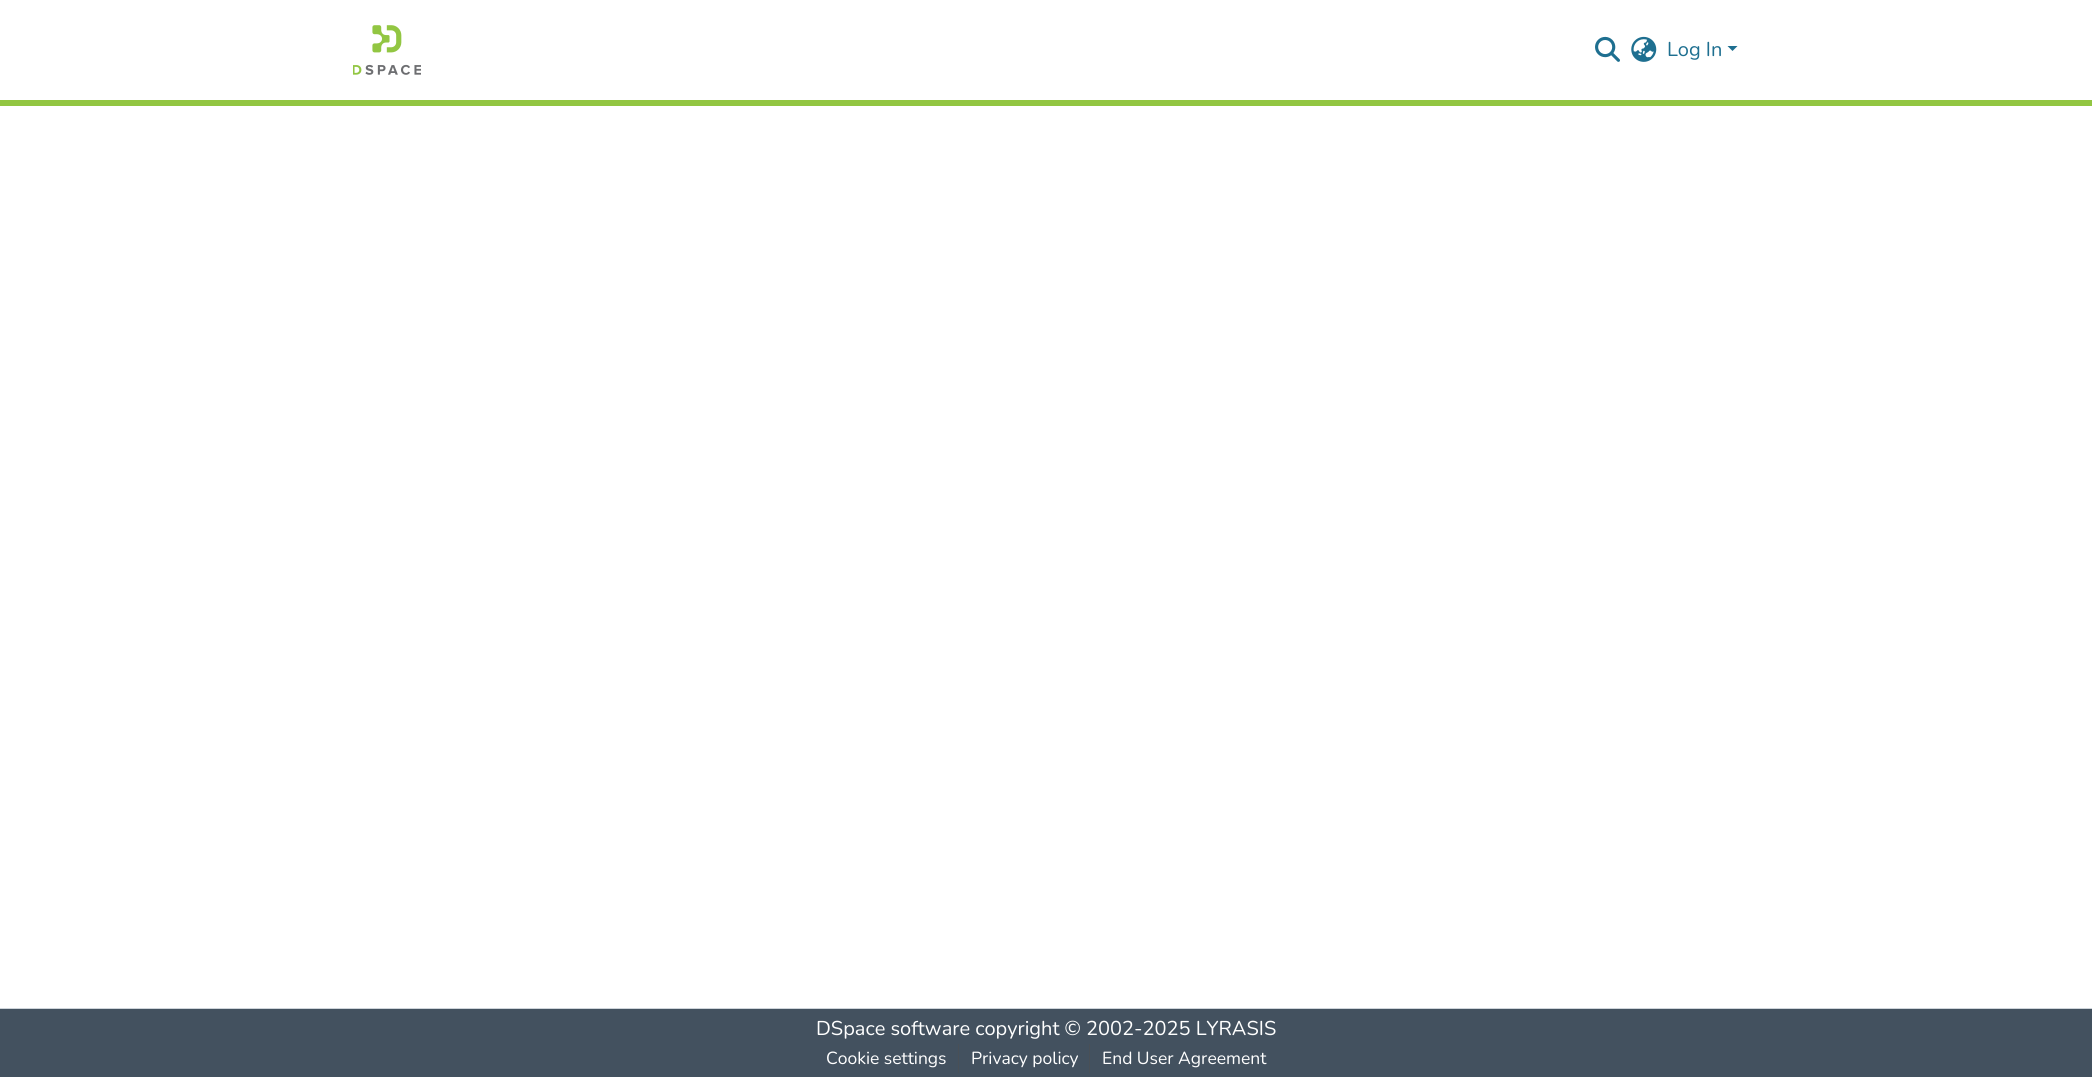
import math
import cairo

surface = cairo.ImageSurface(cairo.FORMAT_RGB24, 2092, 1077)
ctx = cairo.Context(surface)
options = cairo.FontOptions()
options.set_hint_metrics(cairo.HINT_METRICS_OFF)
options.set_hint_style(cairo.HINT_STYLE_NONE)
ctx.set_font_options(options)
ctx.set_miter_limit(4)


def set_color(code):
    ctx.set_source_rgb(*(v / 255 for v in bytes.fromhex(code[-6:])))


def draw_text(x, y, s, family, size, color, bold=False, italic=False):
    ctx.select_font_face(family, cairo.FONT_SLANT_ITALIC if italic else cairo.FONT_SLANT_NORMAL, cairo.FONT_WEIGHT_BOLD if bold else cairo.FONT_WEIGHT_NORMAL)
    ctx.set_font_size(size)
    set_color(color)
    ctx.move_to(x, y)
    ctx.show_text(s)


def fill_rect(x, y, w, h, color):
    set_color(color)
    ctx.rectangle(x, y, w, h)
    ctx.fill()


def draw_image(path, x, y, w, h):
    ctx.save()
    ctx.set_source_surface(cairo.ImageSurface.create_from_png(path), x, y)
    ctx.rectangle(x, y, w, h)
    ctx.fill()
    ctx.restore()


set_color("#ffffff")
ctx.paint()
fill_rect(0, 100, 2092, 6, "#92c642")
draw_image("assets/img1.png", 353, 25, 68, 50)
draw_image("assets/img2.png", 1595, 36, 25, 26)
draw_image("assets/img3.png", 1631, 36, 26, 26)
draw_text(1667, 56, "Log In", "Nunito", 20, "#1e6f90")
ctx.new_path()
ctx.move_to(1727.5, 46)
ctx.line_to(1737.5, 46)
ctx.line_to(1732.5, 51)
ctx.close_path()
ctx.fill()
fill_rect(0, 1009, 2092, 68, "#43515f")
fill_rect(0, 1008, 2092, 1, "#ced4da")
draw_text(816, 1035, "DSpace software copyright © 2002-2025 LYRASIS", "Nunito", 20, "#ffffff")
draw_text(826, 1064, "Cookie settings", "Nunito", 17.5, "#ffffff")
fill_rect(958, 1044, 1, 29, "#495057")
draw_text(971, 1064, "Privacy policy", "Nunito", 17.5, "#ffffff")
fill_rect(1089, 1044, 1, 29, "#495057")
draw_text(1102, 1064, "End User Agreement", "Nunito", 17.5, "#ffffff")
surface.write_to_png("output.png")
